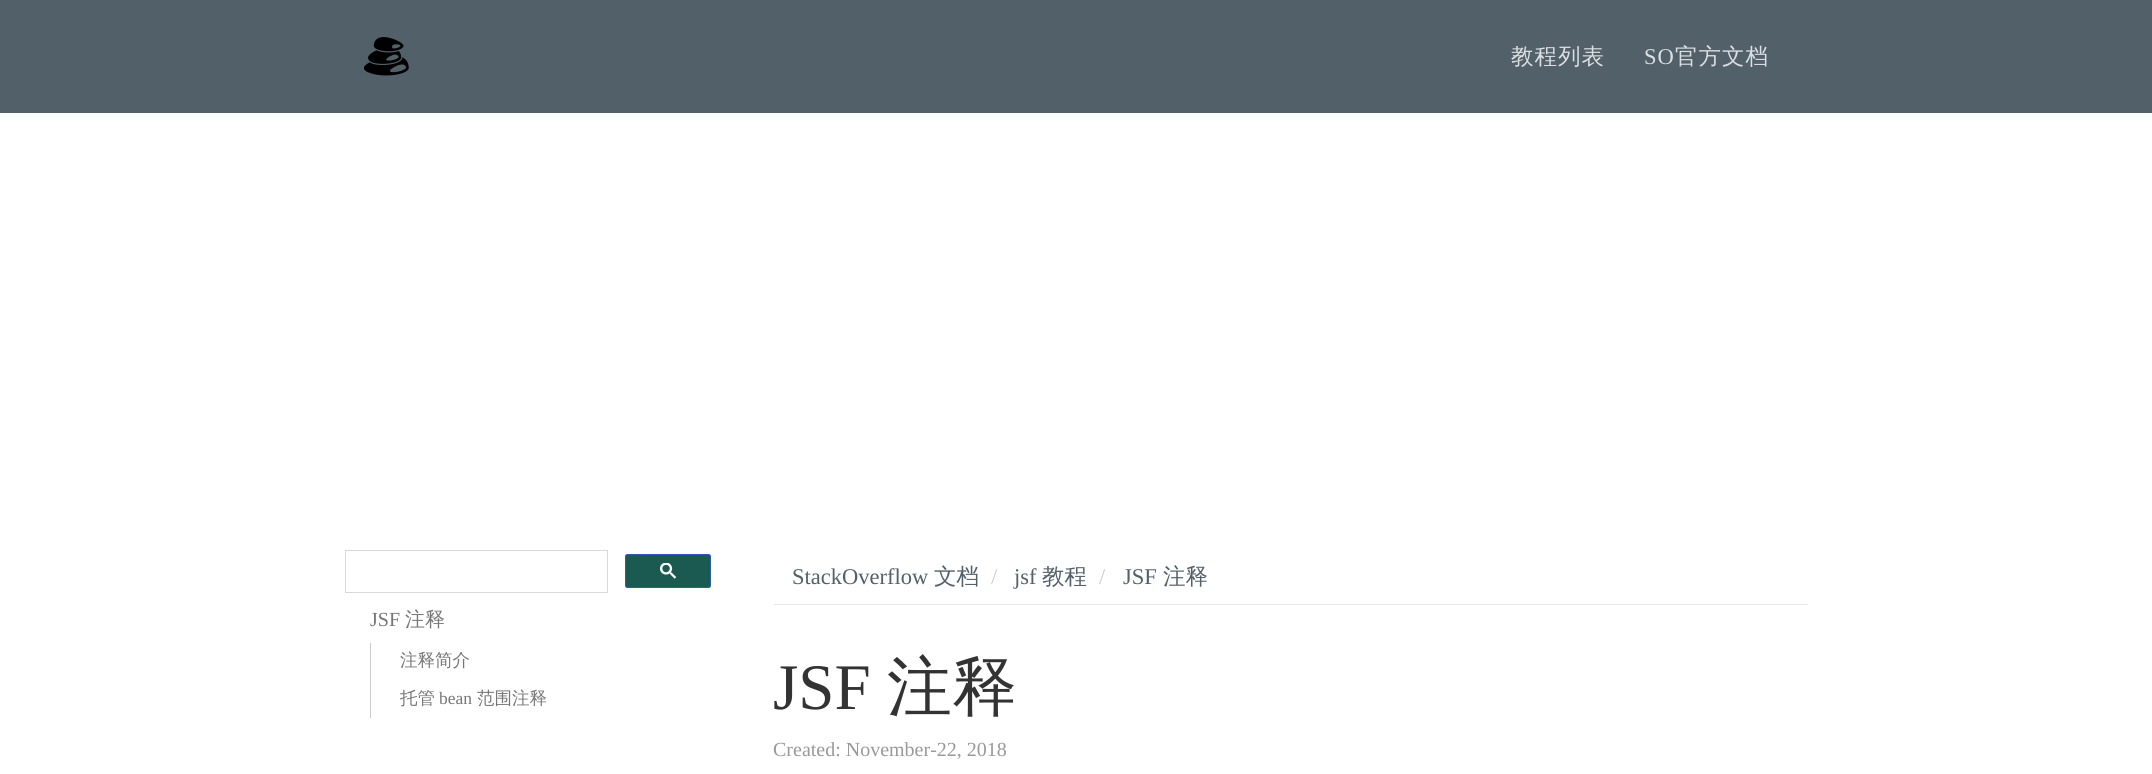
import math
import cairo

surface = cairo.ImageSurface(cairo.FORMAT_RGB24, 2152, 774)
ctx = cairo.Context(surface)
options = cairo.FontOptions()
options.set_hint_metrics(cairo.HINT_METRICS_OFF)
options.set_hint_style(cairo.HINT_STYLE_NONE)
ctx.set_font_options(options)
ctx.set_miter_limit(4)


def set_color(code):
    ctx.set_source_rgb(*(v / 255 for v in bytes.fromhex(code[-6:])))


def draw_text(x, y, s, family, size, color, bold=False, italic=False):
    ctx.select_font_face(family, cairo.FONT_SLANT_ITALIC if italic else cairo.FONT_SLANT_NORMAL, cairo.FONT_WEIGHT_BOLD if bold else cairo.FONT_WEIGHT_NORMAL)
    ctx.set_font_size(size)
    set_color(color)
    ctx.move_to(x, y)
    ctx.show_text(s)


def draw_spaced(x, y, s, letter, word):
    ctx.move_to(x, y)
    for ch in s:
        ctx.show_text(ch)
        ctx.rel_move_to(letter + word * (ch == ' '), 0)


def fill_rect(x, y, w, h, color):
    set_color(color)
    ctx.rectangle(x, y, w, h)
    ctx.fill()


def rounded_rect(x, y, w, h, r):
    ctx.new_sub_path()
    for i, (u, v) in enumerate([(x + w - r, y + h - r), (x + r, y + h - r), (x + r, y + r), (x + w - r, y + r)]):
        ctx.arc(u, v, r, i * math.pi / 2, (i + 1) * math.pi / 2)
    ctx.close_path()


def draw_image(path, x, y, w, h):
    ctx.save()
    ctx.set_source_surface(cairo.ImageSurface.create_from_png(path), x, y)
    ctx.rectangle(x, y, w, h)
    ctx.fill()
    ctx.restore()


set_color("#ffffff")
ctx.paint()
fill_rect(0, 0, 2152, 113, "#526069")
draw_image("assets/img1.png", 364, 37, 45, 39)
ctx.select_font_face("WenQuanYi Zen Hei Medium")
ctx.set_font_size(22.5)
set_color("#dcdfe1")
draw_spaced(1511, 64, "教程列表", 1, 0)
ctx.select_font_face("Liberation Serif")
draw_spaced(1644, 64, "SO", 1, 0)
ctx.select_font_face("WenQuanYi Zen Hei Medium")
draw_spaced(1675, 64, "官方文档", 1, 0)
ctx.rectangle(345.5, 550.5, 262, 42)
set_color("#d9d9d9")
ctx.set_line_width(1)
ctx.stroke()
set_color("#1b5a50")
rounded_rect(625.5, 554.5, 85, 33, 2)
ctx.fill_preserve()
set_color("#2f5bb7")
ctx.stroke()
draw_image("assets/img2.png", 660, 563, 16, 16)
draw_text(370, 626, "JSF", "Liberation Serif", 20, "#777777")
draw_text(405, 626, "注释", "WenQuanYi Zen Hei Medium", 20, "#777777")
fill_rect(370, 643, 1, 75, "#cccccc")
draw_text(400, 666, "注释简介", "WenQuanYi Zen Hei Medium", 17.5, "#777777")
draw_text(400, 704, "托管", "WenQuanYi Zen Hei Medium", 17.5, "#777777")
draw_text(439, 704, "bean", "Liberation Serif", 17.5, "#777777")
draw_text(477, 704, "范围注释", "WenQuanYi Zen Hei Medium", 17.5, "#777777")
fill_rect(774, 604, 1034, 1, "#e7e7e7")
draw_text(792, 584, "StackOverflow", "Liberation Serif", 22.5, "#526069")
draw_text(934, 584, "文档", "WenQuanYi Zen Hei Medium", 22.5, "#526069")
draw_text(991, 584, "/", "Liberation Serif", 22.5, "#cccccc")
draw_text(1014, 584, "jsf", "Liberation Serif", 22.5, "#526069")
draw_text(1042, 584, "教程", "WenQuanYi Zen Hei Medium", 22.5, "#526069")
draw_text(1099, 584, "/", "Liberation Serif", 22.5, "#cccccc")
draw_text(1123, 584, "JSF", "Liberation Serif", 22.5, "#526069")
draw_text(1163, 584, "注释", "WenQuanYi Zen Hei Medium", 22.5, "#526069")
draw_text(773, 709, "JSF", "Liberation Serif", 65, "#333333")
draw_text(887, 709, "注释", "WenQuanYi Zen Hei Medium", 65, "#333333")
draw_text(773, 756, "Created: November-22, 2018", "Liberation Serif", 20, "#999999")
surface.write_to_png("output.png")
